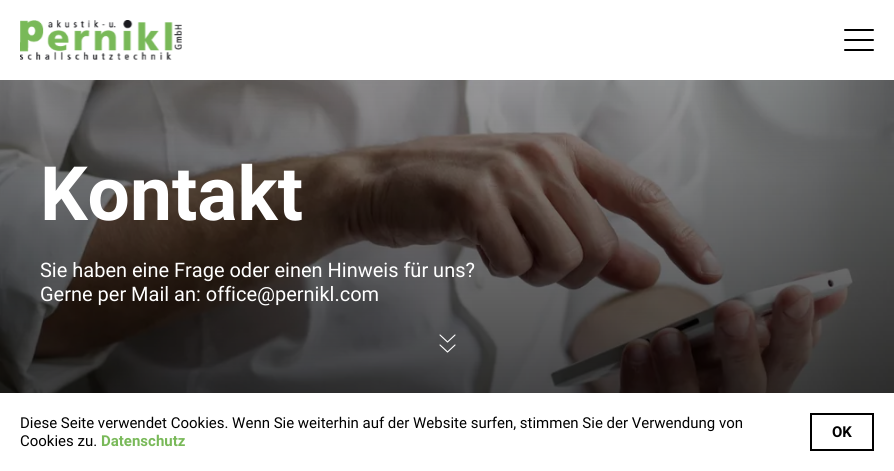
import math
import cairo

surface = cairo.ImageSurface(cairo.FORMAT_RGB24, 894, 471)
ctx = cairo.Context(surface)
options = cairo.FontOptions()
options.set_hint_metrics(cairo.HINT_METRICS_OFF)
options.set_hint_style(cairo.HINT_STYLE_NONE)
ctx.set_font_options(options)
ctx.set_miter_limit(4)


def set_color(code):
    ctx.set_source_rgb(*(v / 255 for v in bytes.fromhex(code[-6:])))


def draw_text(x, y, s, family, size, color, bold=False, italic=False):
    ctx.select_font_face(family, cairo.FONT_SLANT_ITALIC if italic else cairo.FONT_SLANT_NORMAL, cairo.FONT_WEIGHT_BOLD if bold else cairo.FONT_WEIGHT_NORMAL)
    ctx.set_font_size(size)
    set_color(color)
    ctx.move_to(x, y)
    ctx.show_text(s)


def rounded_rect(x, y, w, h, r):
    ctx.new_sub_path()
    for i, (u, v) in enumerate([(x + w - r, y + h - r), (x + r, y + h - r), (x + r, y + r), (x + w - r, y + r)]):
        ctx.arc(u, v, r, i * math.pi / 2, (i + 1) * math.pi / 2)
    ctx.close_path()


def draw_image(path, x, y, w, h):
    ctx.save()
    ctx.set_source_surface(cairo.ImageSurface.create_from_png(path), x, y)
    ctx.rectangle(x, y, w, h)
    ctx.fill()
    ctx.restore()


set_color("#ffffff")
ctx.paint()
draw_image("assets/img1.png", 20, 20, 162, 40)
set_color("#000000")
rounded_rect(844, 29, 30, 2, 1)
ctx.fill()
rounded_rect(844, 39, 30, 2, 1)
ctx.fill()
rounded_rect(844, 49, 30, 2, 1)
ctx.fill()
draw_image("assets/img2.png", 0, 80, 894, 313)
gradient = cairo.LinearGradient(447, 80, 447, 471)
gradient.add_color_stop_rgba(0, 0, 0, 0, 0.4)
gradient.add_color_stop_rgba(0.5, 0, 0, 0, 0.6)
gradient.add_color_stop_rgba(1, 0, 0, 0, 0.8)
ctx.set_source(gradient)
ctx.rectangle(0, 80, 894, 313)
ctx.fill()
draw_text(40, 220, "Kontakt", "Roboto", 75, "#ffffff", bold=True)
draw_text(40, 277, "Sie haben eine Frage oder einen Hinweis für uns?", "Roboto", 20, "#ffffff")
draw_text(40, 301, "Gerne per Mail an: office@pernikl.com", "Roboto", 20, "#ffffff")
ctx.new_path()
ctx.move_to(440, 345)
ctx.line_to(447.5, 352)
ctx.line_to(455, 345)
ctx.move_to(440, 335)
ctx.line_to(447.5, 342)
ctx.line_to(455, 335)
ctx.set_line_width(1.1)
ctx.set_line_cap(cairo.LINE_CAP_ROUND)
ctx.set_line_join(cairo.LINE_JOIN_ROUND)
ctx.stroke()
draw_text(20, 428, "Diese Seite verwendet Cookies. Wenn Sie weiterhin auf der Website surfen, stimmen Sie der Verwendung von", "Roboto", 15, "#000000")
draw_text(20, 446, "Cookies zu.", "Roboto", 15, "#000000")
draw_text(101, 446, "Datenschutz", "Roboto", 15, "#79b959", bold=True)
ctx.rectangle(811, 414, 62, 36)
set_color("#000000")
ctx.set_line_width(2)
ctx.set_line_cap(cairo.LINE_CAP_BUTT)
ctx.set_line_join(cairo.LINE_JOIN_MITER)
ctx.stroke()
draw_text(832, 437, "OK", "Roboto", 15, "#000000", bold=True)
surface.write_to_png("output.png")
